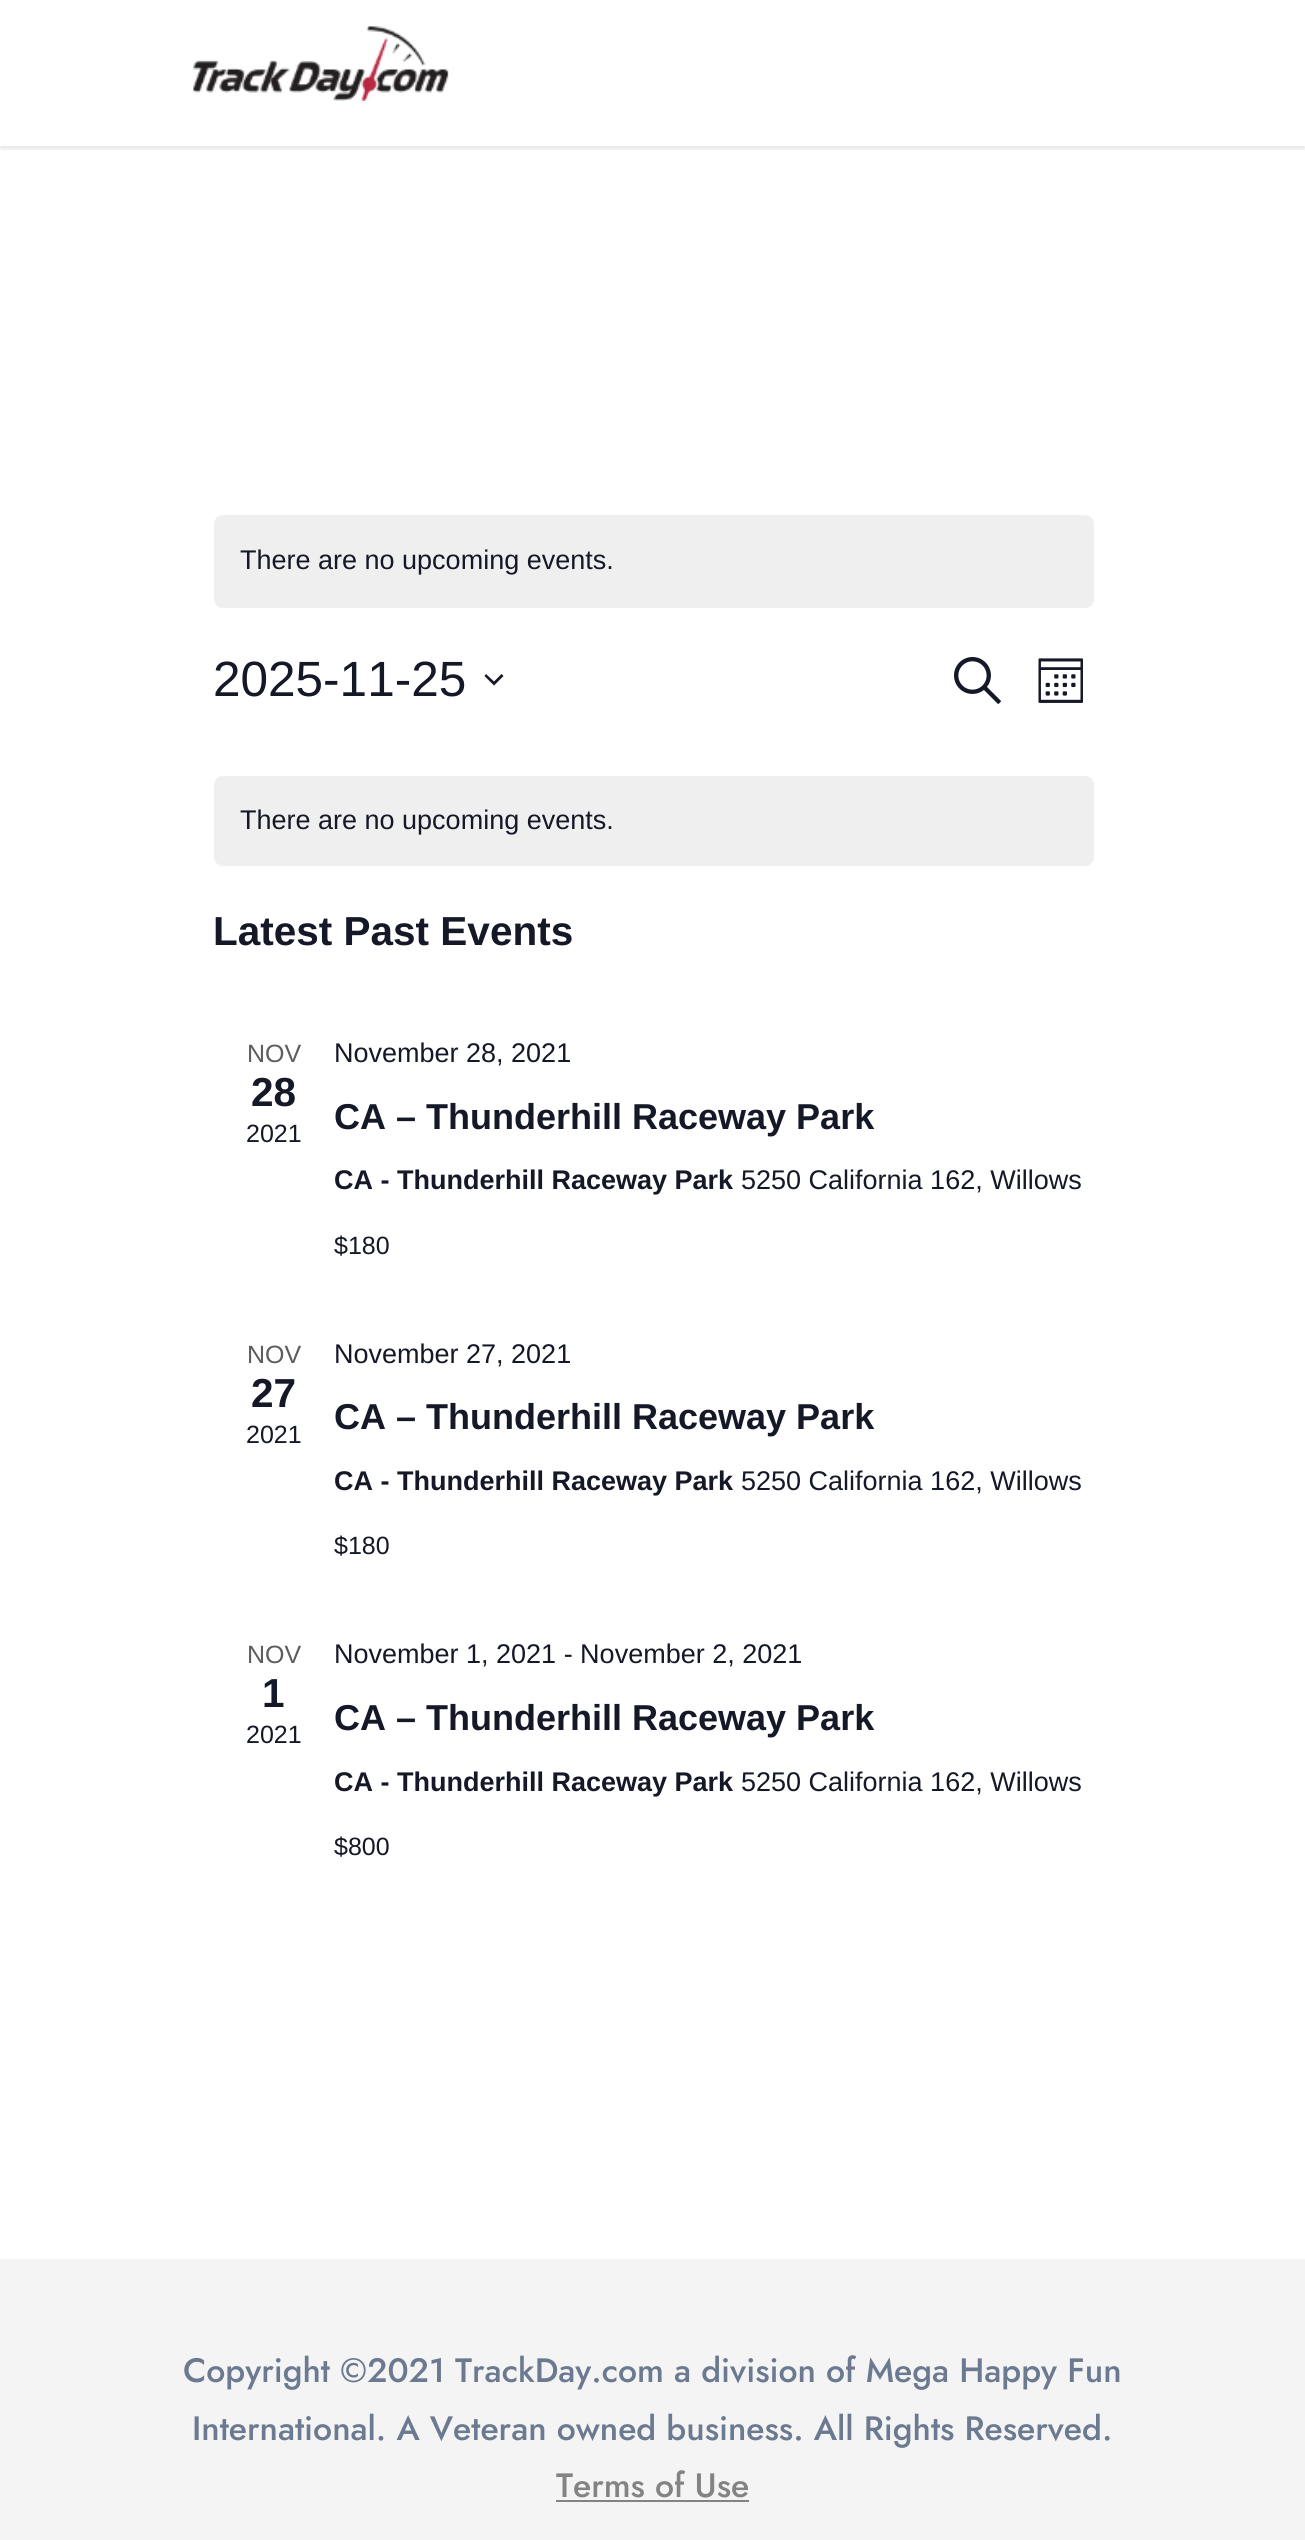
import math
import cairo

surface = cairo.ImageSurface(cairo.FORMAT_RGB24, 1305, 2540)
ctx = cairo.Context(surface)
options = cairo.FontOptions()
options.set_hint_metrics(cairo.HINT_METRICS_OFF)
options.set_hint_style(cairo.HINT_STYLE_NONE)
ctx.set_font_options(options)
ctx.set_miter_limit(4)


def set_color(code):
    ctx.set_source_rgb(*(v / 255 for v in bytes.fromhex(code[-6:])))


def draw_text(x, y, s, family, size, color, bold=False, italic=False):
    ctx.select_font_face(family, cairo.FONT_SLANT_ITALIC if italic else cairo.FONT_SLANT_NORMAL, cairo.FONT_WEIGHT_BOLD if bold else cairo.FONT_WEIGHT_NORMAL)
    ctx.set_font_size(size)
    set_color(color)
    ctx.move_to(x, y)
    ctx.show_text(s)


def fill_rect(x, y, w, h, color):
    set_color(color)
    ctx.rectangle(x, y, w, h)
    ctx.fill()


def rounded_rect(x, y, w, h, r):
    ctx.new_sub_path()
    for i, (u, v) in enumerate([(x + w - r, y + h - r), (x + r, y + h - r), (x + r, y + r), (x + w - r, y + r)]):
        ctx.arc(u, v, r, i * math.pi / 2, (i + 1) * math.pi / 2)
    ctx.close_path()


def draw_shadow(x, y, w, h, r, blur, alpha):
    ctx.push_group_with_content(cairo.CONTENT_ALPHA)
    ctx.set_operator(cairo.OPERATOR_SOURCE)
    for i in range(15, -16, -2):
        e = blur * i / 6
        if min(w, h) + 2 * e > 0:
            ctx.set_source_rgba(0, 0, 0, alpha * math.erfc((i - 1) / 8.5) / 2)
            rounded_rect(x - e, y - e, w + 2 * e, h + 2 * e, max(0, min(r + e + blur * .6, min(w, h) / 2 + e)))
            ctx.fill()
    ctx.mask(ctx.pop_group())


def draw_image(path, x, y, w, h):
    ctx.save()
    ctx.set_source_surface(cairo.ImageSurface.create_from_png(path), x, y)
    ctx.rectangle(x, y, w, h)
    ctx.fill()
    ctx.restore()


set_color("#ffffff")
ctx.paint()
ctx.save()
ctx.rectangle(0, 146, 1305, 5)
ctx.clip()
set_color("#000000")
draw_shadow(0, -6, 1305, 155, 0, 2, 0.1)
ctx.restore()
draw_image("assets/img1.png", 193, 26, 256, 75)
set_color("#efeff0")
rounded_rect(214, 515, 880, 93, 9)
ctx.fill()
draw_text(240, 569, "There are no upcoming events.", "Liberation Sans", 27, "#141827")
draw_text(213, 696, "2025-11-25", "Liberation Sans", 49.5, "#141827")
ctx.set_fill_rule(cairo.FILL_RULE_EVEN_ODD)
ctx.new_path()
ctx.move_to(486, 674)
ctx.line_to(494, 681.5)
ctx.line_to(501.5, 674)
ctx.line_to(503.5, 676)
ctx.line_to(494, 685.5)
ctx.line_to(484.5, 676)
ctx.close_path()
ctx.fill()
draw_image("assets/img2.png", 954, 657, 47, 47)
draw_image("assets/img3.png", 1038, 658, 45, 45)
set_color("#efeff0")
rounded_rect(214, 776, 880, 90, 9)
ctx.fill()
draw_text(240, 829, "There are no upcoming events.", "Liberation Sans", 27, "#141827")
draw_text(213, 945, "Latest Past Events", "Liberation Sans", 40.5, "#141827", bold=True)
draw_text(247, 1062, "NOV", "Liberation Sans", 25, "#5d5d5d")
draw_text(251, 1106, "28", "Liberation Sans", 40.5, "#141827", bold=True)
draw_text(246, 1142, "2021", "Liberation Sans", 25, "#141827")
draw_text(334, 1062, "November 28, 2021", "Liberation Sans", 27, "#141827")
draw_text(334, 1129, "CA – Thunderhill Raceway Park", "Liberation Sans", 36, "#141827", bold=True)
draw_text(334, 1189, "CA - Thunderhill Raceway Park", "Liberation Sans", 27, "#141827", bold=True)
draw_text(741, 1189, "5250 California 162, Willows", "Liberation Sans", 27, "#141827")
draw_text(334, 1254, "$180", "Liberation Sans", 25, "#141827")
draw_text(247, 1363, "NOV", "Liberation Sans", 25, "#5d5d5d")
draw_text(251, 1407, "27", "Liberation Sans", 40.5, "#141827", bold=True)
draw_text(246, 1443, "2021", "Liberation Sans", 25, "#141827")
draw_text(334, 1363, "November 27, 2021", "Liberation Sans", 27, "#141827")
draw_text(334, 1429, "CA – Thunderhill Raceway Park", "Liberation Sans", 36, "#141827", bold=True)
draw_text(334, 1490, "CA - Thunderhill Raceway Park", "Liberation Sans", 27, "#141827", bold=True)
draw_text(741, 1490, "5250 California 162, Willows", "Liberation Sans", 27, "#141827")
draw_text(334, 1554, "$180", "Liberation Sans", 25, "#141827")
draw_text(247, 1663, "NOV", "Liberation Sans", 25, "#5d5d5d")
draw_text(262, 1707, "1", "Liberation Sans", 40.5, "#141827", bold=True)
draw_text(246, 1743, "2021", "Liberation Sans", 25, "#141827")
draw_text(334, 1663, "November 1, 2021 - November 2, 2021", "Liberation Sans", 27, "#141827")
draw_text(334, 1730, "CA – Thunderhill Raceway Park", "Liberation Sans", 36, "#141827", bold=True)
draw_text(334, 1791, "CA - Thunderhill Raceway Park", "Liberation Sans", 27, "#141827", bold=True)
draw_text(741, 1791, "5250 California 162, Willows", "Liberation Sans", 27, "#141827")
draw_text(334, 1855, "$800", "Liberation Sans", 25, "#141827")
fill_rect(0, 2259, 1305, 281, "#f4f4f4")
draw_text(183, 2382, "Copyright ©2021 TrackDay.com a division of Mega Happy Fun", "Jost Medium", 33.75, "#6b7a90")
draw_text(192, 2440, "International. A Veteran owned business. All Rights Reserved.", "Jost Medium", 33.75, "#6b7a90")
draw_text(556, 2497, "Terms of Use", "Jost Medium", 33.75, "#838383")
fill_rect(556, 2500, 193, 2, "#838383")
surface.write_to_png("output.png")
